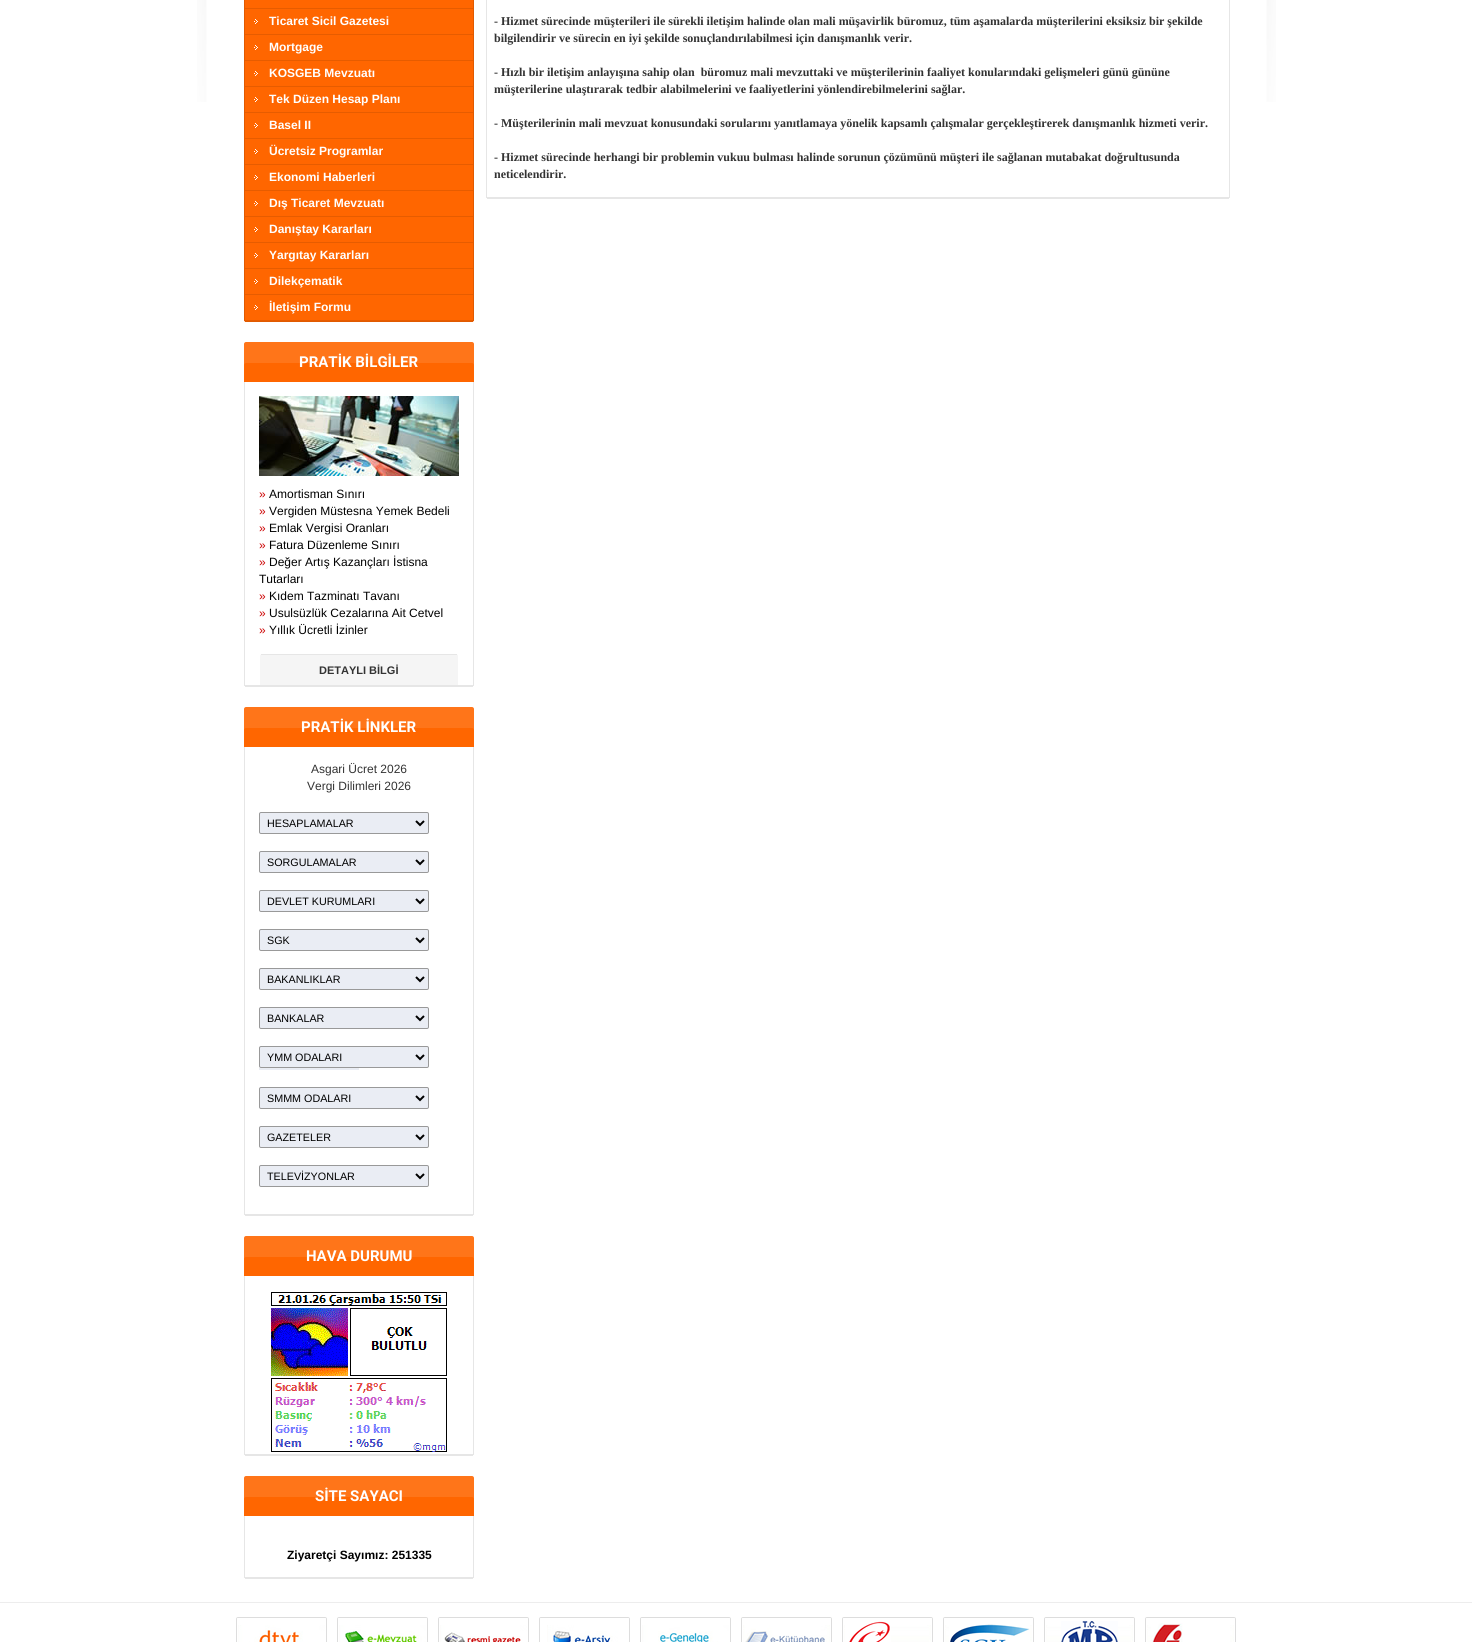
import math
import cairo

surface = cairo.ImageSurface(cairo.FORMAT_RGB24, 1472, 1642)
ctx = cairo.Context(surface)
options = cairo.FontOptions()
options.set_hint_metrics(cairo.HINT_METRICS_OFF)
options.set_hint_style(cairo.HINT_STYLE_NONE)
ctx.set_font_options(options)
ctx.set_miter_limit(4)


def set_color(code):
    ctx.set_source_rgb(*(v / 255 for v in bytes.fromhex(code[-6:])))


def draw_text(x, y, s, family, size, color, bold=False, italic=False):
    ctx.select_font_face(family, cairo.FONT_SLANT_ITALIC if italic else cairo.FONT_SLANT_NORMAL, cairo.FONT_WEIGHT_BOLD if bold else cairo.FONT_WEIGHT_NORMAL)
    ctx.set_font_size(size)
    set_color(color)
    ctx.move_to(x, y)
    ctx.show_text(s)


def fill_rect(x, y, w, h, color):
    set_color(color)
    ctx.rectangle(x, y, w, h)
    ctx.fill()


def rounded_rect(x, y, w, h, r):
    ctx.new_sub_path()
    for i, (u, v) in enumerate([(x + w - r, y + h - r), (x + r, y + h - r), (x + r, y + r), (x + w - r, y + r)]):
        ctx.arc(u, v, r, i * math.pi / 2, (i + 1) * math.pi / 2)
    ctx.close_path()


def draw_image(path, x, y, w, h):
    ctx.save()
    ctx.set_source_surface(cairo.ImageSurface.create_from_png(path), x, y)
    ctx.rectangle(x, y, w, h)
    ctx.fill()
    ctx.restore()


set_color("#ffffff")
ctx.paint()
draw_image("assets/img1.png", 197, 0, 1079, 102)
set_color("#ff6600")
ctx.new_path()
ctx.move_to(244, -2)
ctx.line_to(474, -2)
ctx.line_to(474, 320)
ctx.curve_to(474, 321, 473, 322, 472, 322)
ctx.line_to(246, 322)
ctx.curve_to(245, 322, 244, 321, 244, 320)
ctx.close_path()
ctx.fill()
fill_rect(473, 0, 1, 321, "#e15a00")
fill_rect(245, 321, 228, 1, "#e15a00")
fill_rect(244, 0, 1, 321, "#e15a00")
fill_rect(245, 8, 228, 1, "#e65c00")
fill_rect(245, 34, 228, 1, "#e65c00")
draw_image("assets/img2.png", 254, 19, 4, 5)
draw_text(269, 25, "Ticaret Sicil Gazetesi", "Liberation Sans", 12, "#ffffff", bold=True)
fill_rect(245, 60, 228, 1, "#e65c00")
draw_image("assets/img2.png", 254, 45, 4, 5)
draw_text(269, 51, "Mortgage", "Liberation Sans", 12, "#ffffff", bold=True)
fill_rect(245, 86, 228, 1, "#e65c00")
draw_image("assets/img2.png", 254, 71, 4, 5)
draw_text(269, 77, "KOSGEB Mevzuatı", "Liberation Sans", 12, "#ffffff", bold=True)
fill_rect(245, 112, 228, 1, "#e65c00")
draw_image("assets/img2.png", 254, 97, 4, 5)
draw_text(269, 103, "Tek Düzen Hesap Planı", "Liberation Sans", 12, "#ffffff", bold=True)
fill_rect(245, 138, 228, 1, "#e65c00")
draw_image("assets/img2.png", 254, 123, 4, 5)
draw_text(269, 129, "Basel II", "Liberation Sans", 12, "#ffffff", bold=True)
fill_rect(245, 164, 228, 1, "#e65c00")
draw_image("assets/img2.png", 254, 149, 4, 5)
draw_text(269, 155, "Ücretsiz Programlar", "Liberation Sans", 12, "#ffffff", bold=True)
fill_rect(245, 190, 228, 1, "#e65c00")
draw_image("assets/img2.png", 254, 175, 4, 5)
draw_text(269, 181, "Ekonomi Haberleri", "Liberation Sans", 12, "#ffffff", bold=True)
fill_rect(245, 216, 228, 1, "#e65c00")
draw_image("assets/img2.png", 254, 201, 4, 5)
draw_text(269, 207, "Dış Ticaret Mevzuatı", "Liberation Sans", 12, "#ffffff", bold=True)
fill_rect(245, 242, 228, 1, "#e65c00")
draw_image("assets/img2.png", 254, 227, 4, 5)
draw_text(269, 233, "Danıştay Kararları", "Liberation Sans", 12, "#ffffff", bold=True)
fill_rect(245, 268, 228, 1, "#e65c00")
draw_image("assets/img2.png", 254, 253, 4, 5)
draw_text(269, 259, "Yargıtay Kararları", "Liberation Sans", 12, "#ffffff", bold=True)
fill_rect(245, 294, 228, 1, "#e65c00")
draw_image("assets/img2.png", 254, 279, 4, 5)
draw_text(269, 285, "Dilekçematik", "Liberation Sans", 12, "#ffffff", bold=True)
fill_rect(245, 320, 228, 1, "#e65c00")
draw_image("assets/img2.png", 254, 305, 4, 5)
draw_text(269, 311, "İletişim Formu", "Liberation Sans", 12, "#ffffff", bold=True)
set_color("#ff6600")
ctx.new_path()
ctx.move_to(246, 342)
ctx.line_to(472, 342)
ctx.curve_to(473, 342, 474, 343, 474, 344)
ctx.line_to(474, 382)
ctx.line_to(244, 382)
ctx.line_to(244, 344)
ctx.curve_to(244, 343, 245, 342, 246, 342)
ctx.close_path()
ctx.fill()
ctx.set_source_rgba(0.98, 0.98, 0.98, 0.1)
ctx.new_path()
ctx.move_to(246, 363)
ctx.line_to(472, 363)
ctx.curve_to(473, 363, 474, 364, 474, 365)
ctx.line_to(474, 344)
ctx.curve_to(474, 343, 473, 342, 472, 342)
ctx.line_to(246, 342)
ctx.curve_to(245, 342, 244, 343, 244, 344)
ctx.line_to(244, 365)
ctx.curve_to(244, 364, 245, 363, 246, 363)
ctx.close_path()
ctx.fill()
draw_text(299, 367, "PRATİK BİLGİLER", "Roboto", 15, "#ffffff", bold=True)
fill_rect(473, 382, 1, 304, "#e6e6e6")
fill_rect(245, 685, 228, 2, "#e6e6e6")
fill_rect(244, 382, 1, 304, "#e6e6e6")
draw_image("assets/img3.png", 259, 396, 200, 80)
draw_text(259, 498, "»", "Liberation Sans", 12, "#cc0000")
draw_text(269, 498, "Amortisman Sınırı", "Liberation Sans", 12, "#000000")
draw_text(259, 515, "»", "Liberation Sans", 12, "#cc0000")
draw_text(269, 515, "Vergiden Müstesna Yemek Bedeli", "Liberation Sans", 12, "#000000")
draw_text(259, 532, "»", "Liberation Sans", 12, "#cc0000")
draw_text(269, 532, "Emlak Vergisi Oranları", "Liberation Sans", 12, "#000000")
draw_text(259, 549, "»", "Liberation Sans", 12, "#cc0000")
draw_text(269, 549, "Fatura Düzenleme Sınırı", "Liberation Sans", 12, "#000000")
draw_text(259, 566, "»", "Liberation Sans", 12, "#cc0000")
draw_text(269, 566, "Değer Artış Kazançları İstisna", "Liberation Sans", 12, "#000000")
draw_text(259, 583, "Tutarları", "Liberation Sans", 12, "#000000")
draw_text(259, 600, "»", "Liberation Sans", 12, "#cc0000")
draw_text(269, 600, "Kıdem Tazminatı Tavanı", "Liberation Sans", 12, "#000000")
draw_text(259, 617, "»", "Liberation Sans", 12, "#cc0000")
draw_text(269, 617, "Usulsüzlük Cezalarına Ait Cetvel", "Liberation Sans", 12, "#000000")
draw_text(259, 634, "»", "Liberation Sans", 12, "#cc0000")
draw_text(269, 634, "Yıllık Ücretli İzinler", "Liberation Sans", 12, "#000000")
set_color("#f5f5f5")
ctx.new_path()
ctx.move_to(262, 654)
ctx.line_to(456, 654)
ctx.curve_to(457, 654, 458, 655, 458, 656)
ctx.line_to(458, 685)
ctx.line_to(260, 685)
ctx.line_to(260, 656)
ctx.curve_to(260, 655, 261, 654, 262, 654)
ctx.close_path()
ctx.fill()
fill_rect(261, 654, 196, 1, "#e6e6e6")
draw_text(319, 674, "DETAYLI BİLGİ", "Liberation Sans", 11, "#333333", bold=True)
set_color("#ff6600")
ctx.new_path()
ctx.move_to(246, 707)
ctx.line_to(472, 707)
ctx.curve_to(473, 707, 474, 708, 474, 709)
ctx.line_to(474, 747)
ctx.line_to(244, 747)
ctx.line_to(244, 709)
ctx.curve_to(244, 708, 245, 707, 246, 707)
ctx.close_path()
ctx.fill()
ctx.set_source_rgba(0.98, 0.98, 0.98, 0.1)
ctx.new_path()
ctx.move_to(246, 728)
ctx.line_to(472, 728)
ctx.curve_to(473, 728, 474, 729, 474, 730)
ctx.line_to(474, 709)
ctx.curve_to(474, 708, 473, 707, 472, 707)
ctx.line_to(246, 707)
ctx.curve_to(245, 707, 244, 708, 244, 709)
ctx.line_to(244, 730)
ctx.curve_to(244, 729, 245, 728, 246, 728)
ctx.close_path()
ctx.fill()
draw_text(301, 732, "PRATİK LİNKLER", "Roboto", 15, "#ffffff", bold=True)
fill_rect(473, 747, 1, 468, "#e6e6e6")
fill_rect(245, 1214, 228, 2, "#e6e6e6")
fill_rect(244, 747, 1, 468, "#e6e6e6")
draw_text(311, 773, "Asgari Ücret 2026", "Liberation Sans", 12, "#333333")
draw_text(307, 790, "Vergi Dilimleri 2026", "Liberation Sans", 12, "#333333")
set_color("#eaedf4")
rounded_rect(259.5, 812.5, 169, 21, 1.5)
ctx.fill_preserve()
set_color("#999999")
ctx.set_line_width(1)
ctx.stroke()
ctx.new_path()
ctx.move_to(416, 821)
ctx.line_to(420, 825)
ctx.line_to(424, 821)
set_color("#000000")
ctx.set_line_width(2)
ctx.stroke()
draw_text(267, 827, "HESAPLAMALAR", "Liberation Sans", 10.75, "#000000")
set_color("#eaedf4")
rounded_rect(259.5, 851.5, 169, 21, 1.5)
ctx.fill_preserve()
set_color("#999999")
ctx.set_line_width(1)
ctx.stroke()
ctx.new_path()
ctx.move_to(416, 860)
ctx.line_to(420, 864)
ctx.line_to(424, 860)
set_color("#000000")
ctx.set_line_width(2)
ctx.stroke()
draw_text(267, 866, "SORGULAMALAR", "Liberation Sans", 10.75, "#000000")
set_color("#eaedf4")
rounded_rect(259.5, 890.5, 169, 21, 1.5)
ctx.fill_preserve()
set_color("#999999")
ctx.set_line_width(1)
ctx.stroke()
ctx.new_path()
ctx.move_to(416, 899)
ctx.line_to(420, 903)
ctx.line_to(424, 899)
set_color("#000000")
ctx.set_line_width(2)
ctx.stroke()
draw_text(267, 905, "DEVLET KURUMLARI", "Liberation Sans", 10.75, "#000000")
set_color("#eaedf4")
rounded_rect(259.5, 929.5, 169, 21, 1.5)
ctx.fill_preserve()
set_color("#999999")
ctx.set_line_width(1)
ctx.stroke()
ctx.new_path()
ctx.move_to(416, 938)
ctx.line_to(420, 942)
ctx.line_to(424, 938)
set_color("#000000")
ctx.set_line_width(2)
ctx.stroke()
draw_text(267, 944, "SGK", "Liberation Sans", 10.75, "#000000")
set_color("#eaedf4")
rounded_rect(259.5, 968.5, 169, 21, 1.5)
ctx.fill_preserve()
set_color("#999999")
ctx.set_line_width(1)
ctx.stroke()
ctx.new_path()
ctx.move_to(416, 977)
ctx.line_to(420, 981)
ctx.line_to(424, 977)
set_color("#000000")
ctx.set_line_width(2)
ctx.stroke()
draw_text(267, 983, "BAKANLIKLAR", "Liberation Sans", 10.75, "#000000")
set_color("#eaedf4")
rounded_rect(259.5, 1007.5, 169, 21, 1.5)
ctx.fill_preserve()
set_color("#999999")
ctx.set_line_width(1)
ctx.stroke()
ctx.new_path()
ctx.move_to(416, 1016)
ctx.line_to(420, 1020)
ctx.line_to(424, 1016)
set_color("#000000")
ctx.set_line_width(2)
ctx.stroke()
draw_text(267, 1022, "BANKALAR", "Liberation Sans", 10.75, "#000000")
set_color("#eaedf4")
rounded_rect(259.5, 1046.5, 169, 21, 1.5)
ctx.fill_preserve()
set_color("#999999")
ctx.set_line_width(1)
ctx.stroke()
ctx.new_path()
ctx.move_to(416, 1055)
ctx.line_to(420, 1059)
ctx.line_to(424, 1055)
set_color("#000000")
ctx.set_line_width(2)
ctx.stroke()
draw_text(267, 1061, "YMM ODALARI", "Liberation Sans", 10.75, "#000000")
fill_rect(259, 1068, 100, 2, "#eaedf4")
rounded_rect(259.5, 1087.5, 169, 21, 1.5)
ctx.fill_preserve()
set_color("#999999")
ctx.set_line_width(1)
ctx.stroke()
ctx.new_path()
ctx.move_to(416, 1096)
ctx.line_to(420, 1100)
ctx.line_to(424, 1096)
set_color("#000000")
ctx.set_line_width(2)
ctx.stroke()
draw_text(267, 1102, "SMMM ODALARI", "Liberation Sans", 10.75, "#000000")
set_color("#eaedf4")
rounded_rect(259.5, 1126.5, 169, 21, 1.5)
ctx.fill_preserve()
set_color("#999999")
ctx.set_line_width(1)
ctx.stroke()
ctx.new_path()
ctx.move_to(416, 1135)
ctx.line_to(420, 1139)
ctx.line_to(424, 1135)
set_color("#000000")
ctx.set_line_width(2)
ctx.stroke()
draw_text(267, 1141, "GAZETELER", "Liberation Sans", 10.75, "#000000")
set_color("#eaedf4")
rounded_rect(259.5, 1165.5, 169, 21, 1.5)
ctx.fill_preserve()
set_color("#999999")
ctx.set_line_width(1)
ctx.stroke()
ctx.new_path()
ctx.move_to(416, 1174)
ctx.line_to(420, 1178)
ctx.line_to(424, 1174)
set_color("#000000")
ctx.set_line_width(2)
ctx.stroke()
draw_text(267, 1180, "TELEVİZYONLAR", "Liberation Sans", 10.75, "#000000")
set_color("#ff6600")
ctx.new_path()
ctx.move_to(246, 1236)
ctx.line_to(472, 1236)
ctx.curve_to(473, 1236, 474, 1237, 474, 1238)
ctx.line_to(474, 1276)
ctx.line_to(244, 1276)
ctx.line_to(244, 1238)
ctx.curve_to(244, 1237, 245, 1236, 246, 1236)
ctx.close_path()
ctx.fill()
ctx.set_source_rgba(0.98, 0.98, 0.98, 0.1)
ctx.new_path()
ctx.move_to(246, 1257)
ctx.line_to(472, 1257)
ctx.curve_to(473, 1257, 474, 1258, 474, 1259)
ctx.line_to(474, 1238)
ctx.curve_to(474, 1237, 473, 1236, 472, 1236)
ctx.line_to(246, 1236)
ctx.curve_to(245, 1236, 244, 1237, 244, 1238)
ctx.line_to(244, 1259)
ctx.curve_to(244, 1258, 245, 1257, 246, 1257)
ctx.close_path()
ctx.fill()
draw_text(306, 1261, "HAVA DURUMU", "Roboto", 15, "#ffffff", bold=True)
fill_rect(473, 1276, 1, 179, "#e6e6e6")
fill_rect(245, 1454, 228, 2, "#e6e6e6")
fill_rect(244, 1276, 1, 179, "#e6e6e6")
draw_image("assets/img4.png", 271, 1292, 176, 160)
set_color("#ff6600")
ctx.new_path()
ctx.move_to(246, 1476)
ctx.line_to(472, 1476)
ctx.curve_to(473, 1476, 474, 1477, 474, 1478)
ctx.line_to(474, 1516)
ctx.line_to(244, 1516)
ctx.line_to(244, 1478)
ctx.curve_to(244, 1477, 245, 1476, 246, 1476)
ctx.close_path()
ctx.fill()
ctx.set_source_rgba(0.98, 0.98, 0.98, 0.1)
ctx.new_path()
ctx.move_to(246, 1497)
ctx.line_to(472, 1497)
ctx.curve_to(473, 1497, 474, 1498, 474, 1499)
ctx.line_to(474, 1478)
ctx.curve_to(474, 1477, 473, 1476, 472, 1476)
ctx.line_to(246, 1476)
ctx.curve_to(245, 1476, 244, 1477, 244, 1478)
ctx.line_to(244, 1499)
ctx.curve_to(244, 1498, 245, 1497, 246, 1497)
ctx.close_path()
ctx.fill()
draw_text(315, 1501, "SİTE SAYACI", "Roboto", 15, "#ffffff", bold=True)
fill_rect(473, 1516, 1, 62, "#e6e6e6")
fill_rect(245, 1577, 228, 2, "#e6e6e6")
fill_rect(244, 1516, 1, 62, "#e6e6e6")
draw_text(287, 1559, "Ziyaretçi Sayımız: 251335", "Liberation Sans", 12, "#000000", bold=True)
fill_rect(1229, 0, 1, 198, "#e6e6e6")
fill_rect(487, 197, 742, 2, "#e6e6e6")
fill_rect(486, 0, 1, 198, "#e6e6e6")
draw_text(494, 25, "- Hizmet sürecinde müşterileri ile sürekli iletişim halinde olan mali müşavirlik büromuz, tüm aşamalarda müşterilerini eksiksiz bir şekilde", "Liberation Serif", 12, "#333333", bold=True)
draw_text(494, 42, "bilgilendirir ve sürecin en iyi şekilde sonuçlandırılabilmesi için danışmanlık verir.", "Liberation Serif", 12, "#333333", bold=True)
draw_text(494, 76, "- Hızlı bir iletişim anlayışına sahip olan  büromuz mali mevzuttaki ve müşterilerinin faaliyet konularındaki gelişmeleri günü gününe", "Liberation Serif", 12, "#333333", bold=True)
draw_text(494, 93, "müşterilerine ulaştırarak tedbir alabilmelerini ve faaliyetlerini yönlendirebilmelerini sağlar.", "Liberation Serif", 12, "#333333", bold=True)
draw_text(494, 127, "- Müşterilerinin mali mevzuat konusundaki sorularını yanıtlamaya yönelik kapsamlı çalışmalar gerçekleştirerek danışmanlık hizmeti verir.", "Liberation Serif", 12, "#333333", bold=True)
draw_text(494, 161, "- Hizmet sürecinde herhangi bir problemin vukuu bulması halinde sorunun çözümünü müşteri ile sağlanan mutabakat doğrultusunda", "Liberation Serif", 12, "#333333", bold=True)
draw_text(494, 178, "neticelendirir.", "Liberation Serif", 12, "#333333", bold=True)
fill_rect(0, 1602, 1472, 1, "#ededed")
rounded_rect(236.5, 1617.5, 90, 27, 1.5)
set_color("#dddddd")
ctx.set_line_width(1)
ctx.stroke()
draw_image("assets/img5.png", 237, 1618, 89, 24)
rounded_rect(337.5, 1617.5, 90, 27, 1.5)
ctx.stroke()
draw_image("assets/img6.png", 338, 1618, 89, 24)
rounded_rect(438.5, 1617.5, 90, 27, 1.5)
ctx.stroke()
draw_image("assets/img7.png", 439, 1618, 89, 24)
rounded_rect(539.5, 1617.5, 90, 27, 1.5)
ctx.stroke()
draw_image("assets/img8.png", 540, 1618, 89, 24)
rounded_rect(640.5, 1617.5, 90, 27, 1.5)
ctx.stroke()
draw_image("assets/img9.png", 641, 1618, 89, 24)
rounded_rect(741.5, 1617.5, 90, 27, 1.5)
ctx.stroke()
draw_image("assets/img10.png", 742, 1618, 89, 24)
rounded_rect(842.5, 1617.5, 90, 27, 1.5)
ctx.stroke()
draw_image("assets/img11.png", 843, 1618, 89, 24)
rounded_rect(943.5, 1617.5, 90, 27, 1.5)
ctx.stroke()
draw_image("assets/img12.png", 944, 1618, 89, 24)
rounded_rect(1044.5, 1617.5, 90, 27, 1.5)
ctx.stroke()
draw_image("assets/img13.png", 1045, 1618, 89, 24)
rounded_rect(1145.5, 1617.5, 90, 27, 1.5)
ctx.stroke()
draw_image("assets/img14.png", 1146, 1618, 89, 24)
surface.write_to_png("output.png")
